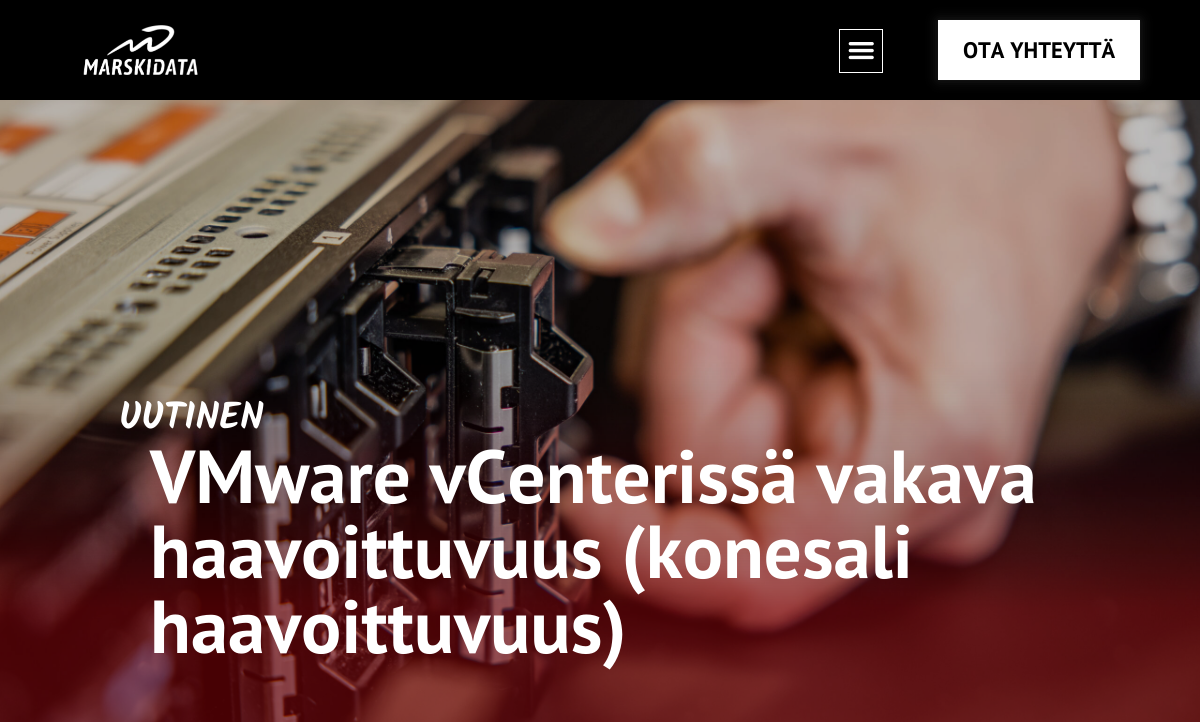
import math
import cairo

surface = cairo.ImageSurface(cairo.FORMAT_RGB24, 1200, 722)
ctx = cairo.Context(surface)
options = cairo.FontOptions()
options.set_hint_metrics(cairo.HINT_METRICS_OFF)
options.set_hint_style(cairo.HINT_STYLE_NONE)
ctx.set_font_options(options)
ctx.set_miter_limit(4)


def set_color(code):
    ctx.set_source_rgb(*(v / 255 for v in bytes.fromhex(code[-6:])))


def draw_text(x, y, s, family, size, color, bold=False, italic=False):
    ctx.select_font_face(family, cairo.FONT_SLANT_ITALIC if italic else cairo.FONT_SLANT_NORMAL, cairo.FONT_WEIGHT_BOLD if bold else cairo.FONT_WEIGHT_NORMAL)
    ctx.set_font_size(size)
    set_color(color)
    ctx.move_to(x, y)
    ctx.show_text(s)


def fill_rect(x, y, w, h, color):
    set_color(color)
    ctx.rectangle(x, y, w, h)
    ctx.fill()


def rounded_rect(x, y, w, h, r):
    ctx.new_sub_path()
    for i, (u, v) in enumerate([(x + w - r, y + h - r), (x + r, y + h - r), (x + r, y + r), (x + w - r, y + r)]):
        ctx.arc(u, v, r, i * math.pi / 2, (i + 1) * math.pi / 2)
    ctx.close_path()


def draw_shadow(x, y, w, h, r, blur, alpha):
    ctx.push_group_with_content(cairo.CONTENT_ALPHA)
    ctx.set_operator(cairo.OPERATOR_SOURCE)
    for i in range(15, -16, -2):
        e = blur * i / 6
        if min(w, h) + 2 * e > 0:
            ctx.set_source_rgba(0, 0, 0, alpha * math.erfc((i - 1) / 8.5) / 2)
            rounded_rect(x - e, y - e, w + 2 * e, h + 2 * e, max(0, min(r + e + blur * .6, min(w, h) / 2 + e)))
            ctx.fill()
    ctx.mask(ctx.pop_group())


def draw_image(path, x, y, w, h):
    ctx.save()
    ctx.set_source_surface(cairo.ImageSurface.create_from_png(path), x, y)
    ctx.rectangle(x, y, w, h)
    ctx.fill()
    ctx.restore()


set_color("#ffffff")
ctx.paint()
fill_rect(0, 0, 1200, 100, "#000000")
draw_image("assets/img1.png", 83, 25, 115, 50)
ctx.rectangle(839.5, 29.5, 43, 43)
set_color("#ffffff")
ctx.set_line_width(1)
ctx.stroke()
draw_image("assets/img2.png", 848, 42, 26, 18)
set_color("#414141")
draw_shadow(938, 20, 202, 60, 0, 6, 0.5)
fill_rect(938, 20, 202, 60, "#ffffff")
draw_text(963, 58, "OTA YHTEYTTÄ", "PT Sans", 22.5, "#000000", bold=True)
draw_image("assets/img3.png", 0, 100, 1200, 622)
draw_text(119, 429, "UUTINEN", "Kalam", 37.5, "#ffffff", bold=True)
draw_text(150, 503, "VMware vCenterissä vakava", "PT Sans", 75, "#ffffff", bold=True)
draw_text(150, 578, "haavoittuvuus (konesali", "PT Sans", 75, "#ffffff", bold=True)
draw_text(150, 653, "haavoittuvuus)", "PT Sans", 75, "#ffffff", bold=True)
surface.write_to_png("output.png")
